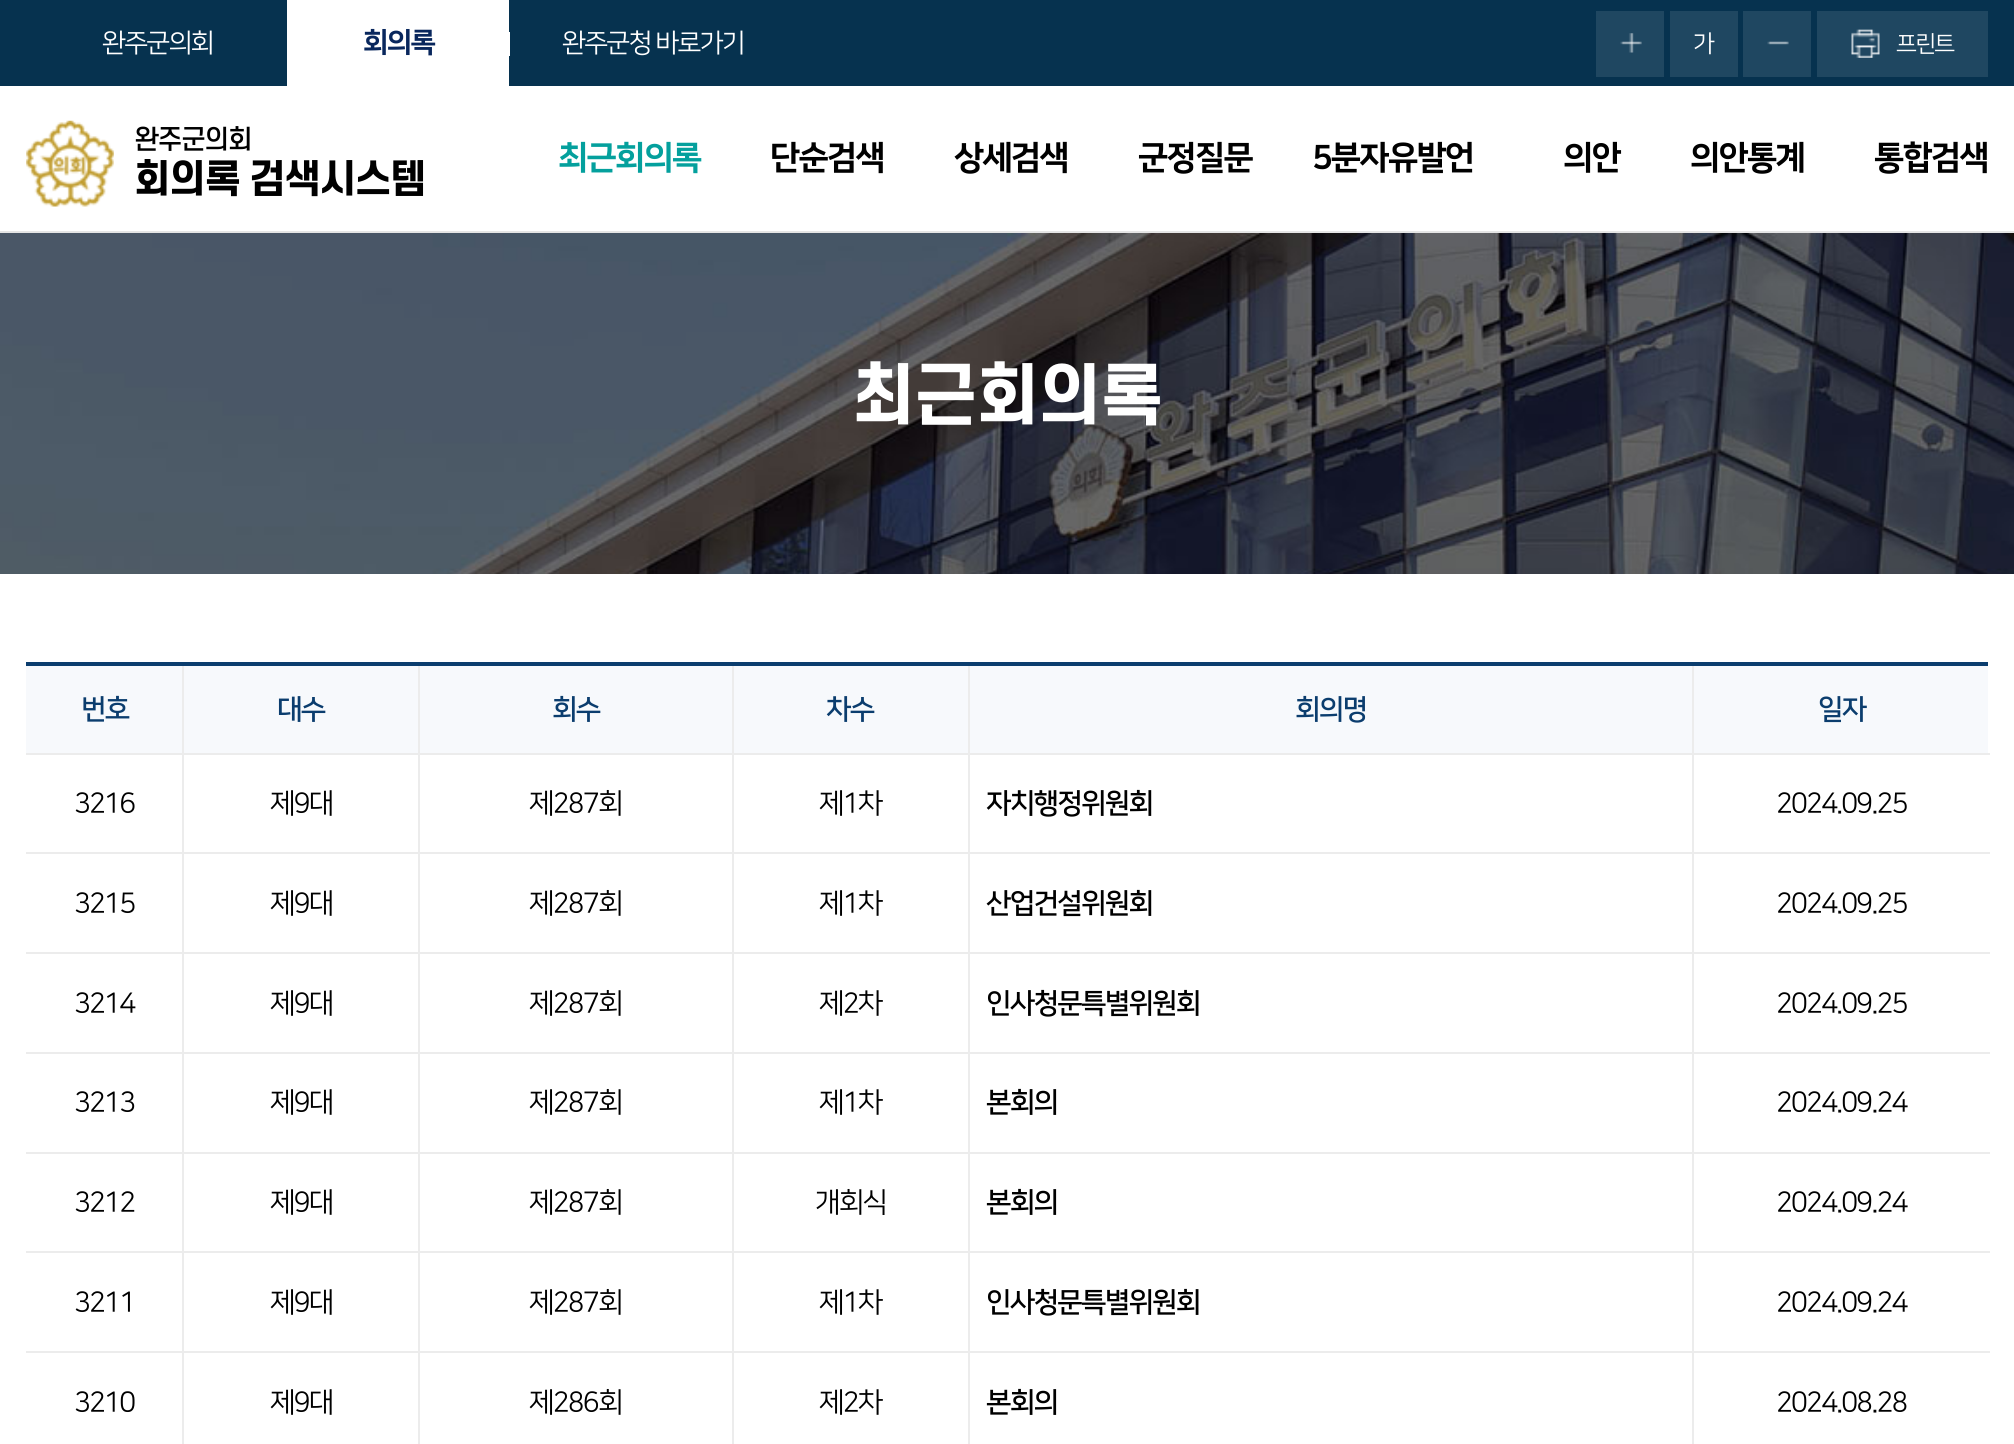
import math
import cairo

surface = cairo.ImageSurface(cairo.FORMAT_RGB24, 2014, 1444)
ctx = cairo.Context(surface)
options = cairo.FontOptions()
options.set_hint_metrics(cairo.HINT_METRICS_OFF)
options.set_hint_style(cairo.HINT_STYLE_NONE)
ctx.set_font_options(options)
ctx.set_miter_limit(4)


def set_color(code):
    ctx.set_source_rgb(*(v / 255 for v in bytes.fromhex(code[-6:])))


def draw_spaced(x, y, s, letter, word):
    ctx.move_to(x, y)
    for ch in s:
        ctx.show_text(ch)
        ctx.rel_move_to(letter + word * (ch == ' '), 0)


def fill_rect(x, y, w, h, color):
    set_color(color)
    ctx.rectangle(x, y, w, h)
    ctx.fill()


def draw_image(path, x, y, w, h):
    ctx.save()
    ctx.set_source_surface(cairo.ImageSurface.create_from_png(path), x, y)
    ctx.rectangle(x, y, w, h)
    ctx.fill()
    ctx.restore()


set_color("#06324f")
ctx.paint()
ctx.select_font_face("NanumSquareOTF")
ctx.set_font_size(26.25)
set_color("#ffffff")
draw_spaced(102, 51, "완주군의회", -1.75, 0)
fill_rect(287, 0, 222, 86, "#ffffff")
ctx.select_font_face("NanumSquareOTF ExtraBold")
ctx.set_font_size(28)
set_color("#09275d")
draw_spaced(363, 51, "회의록", -1.75, 0)
fill_rect(509, 32, 1, 24, "#ffffff")
ctx.select_font_face("NanumSquareOTF")
ctx.set_font_size(26.25)
draw_spaced(562, 51, "완주군청 바로가기", -1.75, 0)
fill_rect(1596, 11, 68, 66, "#1f4761")
draw_image("assets/img1.png", 1620, 33, 22, 20)
fill_rect(1670, 11, 68, 66, "#1f4761")
ctx.set_font_size(24)
set_color("#ffffff")
draw_spaced(1693, 51, "가", -1.75, 0)
fill_rect(1743, 11, 68, 66, "#1f4761")
draw_image("assets/img2.png", 1767, 41, 22, 4)
fill_rect(1817, 11, 171, 66, "#1f4761")
draw_image("assets/img3.png", 1851, 29, 29, 29)
ctx.set_font_size(23)
set_color("#ffffff")
draw_spaced(1896, 51, "프린트", -1.75, 0)
fill_rect(0, 86, 2014, 145, "#ffffff")
draw_image("assets/img4.png", 26, 120, 88, 87)
ctx.select_font_face("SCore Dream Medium")
ctx.set_font_size(26.25)
set_color("#000000")
draw_spaced(134, 149, "완주군의회", -1.75, 0)
ctx.select_font_face("SCore Dream ExtraBold")
ctx.set_font_size(38.5)
draw_spaced(134, 193, "회의록 검색시스템", -1.75, 0)
ctx.select_font_face("NanumSquareOTF ExtraBold")
ctx.set_font_size(33.25)
set_color("#04a09d")
draw_spaced(558, 168, "최근회의록", -1.75, 0)
set_color("#000000")
draw_spaced(770, 168, "단순검색", -1.75, 0)
draw_spaced(954, 168, "상세검색", -1.75, 0)
draw_spaced(1138, 168, "군정질문", -1.75, 0)
draw_spaced(1312, 168, "5분자유발언", -1.75, 0)
draw_spaced(1563, 168, "의안", -1.75, 0)
draw_spaced(1690, 168, "의안통계", -1.75, 0)
draw_spaced(1874, 168, "통합검색", -1.75, 0)
fill_rect(0, 231, 2014, 2, "#e5e5e5")
draw_image("assets/img5.png", 0, 233, 2014, 341)
ctx.select_font_face("SCore Dream ExtraBold")
ctx.set_font_size(66.5)
set_color("#ffffff")
draw_spaced(852, 420, "최근회의록", -1.75, 0)
fill_rect(0, 574, 2014, 870, "#ffffff")
fill_rect(26, 753, 1964, 2, "#ececec")
fill_rect(26, 852, 1964, 2, "#ececec")
fill_rect(26, 952, 1964, 2, "#ececec")
fill_rect(26, 1052, 1964, 2, "#ececec")
fill_rect(26, 1152, 1964, 2, "#ececec")
fill_rect(26, 1251, 1964, 2, "#ececec")
fill_rect(26, 1351, 1964, 2, "#ececec")
fill_rect(182, 1351, 2, 93, "#ececec")
fill_rect(182, 1251, 2, 102, "#ececec")
fill_rect(182, 1152, 2, 101, "#ececec")
fill_rect(182, 1052, 2, 101, "#ececec")
fill_rect(182, 952, 2, 102, "#ececec")
fill_rect(182, 663, 2, 291, "#ececec")
fill_rect(418, 1351, 2, 93, "#ececec")
fill_rect(418, 1251, 2, 102, "#ececec")
fill_rect(418, 1152, 2, 101, "#ececec")
fill_rect(418, 1052, 2, 101, "#ececec")
fill_rect(418, 952, 2, 102, "#ececec")
fill_rect(418, 663, 2, 291, "#ececec")
fill_rect(732, 1351, 2, 93, "#ececec")
fill_rect(732, 1251, 2, 102, "#ececec")
fill_rect(732, 1152, 2, 101, "#ececec")
fill_rect(732, 1052, 2, 101, "#ececec")
fill_rect(732, 952, 2, 102, "#ececec")
fill_rect(732, 663, 2, 291, "#ececec")
fill_rect(968, 1351, 2, 93, "#ececec")
fill_rect(968, 1251, 2, 102, "#ececec")
fill_rect(968, 1152, 2, 101, "#ececec")
fill_rect(968, 1052, 2, 101, "#ececec")
fill_rect(968, 952, 2, 102, "#ececec")
fill_rect(968, 663, 2, 291, "#ececec")
fill_rect(1692, 1351, 2, 93, "#ececec")
fill_rect(1692, 1251, 2, 102, "#ececec")
fill_rect(1692, 1152, 2, 101, "#ececec")
fill_rect(1692, 1052, 2, 101, "#ececec")
fill_rect(1692, 952, 2, 102, "#ececec")
fill_rect(1692, 663, 2, 291, "#ececec")
fill_rect(26, 662, 1962, 4, "#0b3d6e")
fill_rect(26, 666, 156, 87, "#f7f9fc")
ctx.select_font_face("NanumSquareOTF", cairo.FONT_SLANT_NORMAL, cairo.FONT_WEIGHT_BOLD)
ctx.set_font_size(28)
set_color("#0b3d6e")
draw_spaced(81, 718, "번호", -1.75, 0)
fill_rect(184, 666, 234, 87, "#f7f9fc")
set_color("#0b3d6e")
draw_spaced(277, 718, "대수", -1.75, 0)
fill_rect(420, 666, 312, 87, "#f7f9fc")
set_color("#0b3d6e")
draw_spaced(552, 718, "회수", -1.75, 0)
fill_rect(734, 666, 234, 87, "#f7f9fc")
set_color("#0b3d6e")
draw_spaced(826, 718, "차수", -1.75, 0)
fill_rect(970, 666, 722, 87, "#f7f9fc")
set_color("#0b3d6e")
draw_spaced(1295, 718, "회의명", -1.75, 0)
fill_rect(1694, 666, 294, 87, "#f7f9fc")
set_color("#0b3d6e")
draw_spaced(1818, 718, "일자", -1.75, 0)
ctx.select_font_face("NanumSquareOTF")
set_color("#000000")
draw_spaced(74, 812, "3216", -1.75, 0)
draw_spaced(270, 812, "제9대", -1.75, 0)
draw_spaced(529, 812, "제287회", -1.75, 0)
draw_spaced(819, 812, "제1차", -1.75, 0)
ctx.select_font_face("NanumSquareOTF", cairo.FONT_SLANT_NORMAL, cairo.FONT_WEIGHT_BOLD)
draw_spaced(986, 812, "자치행정위원회", -1.75, 0)
ctx.select_font_face("NanumSquareOTF")
draw_spaced(1776, 812, "2024.09.25", -1.75, 0)
draw_spaced(74, 912, "3215", -1.75, 0)
draw_spaced(270, 912, "제9대", -1.75, 0)
draw_spaced(529, 912, "제287회", -1.75, 0)
draw_spaced(819, 912, "제1차", -1.75, 0)
ctx.select_font_face("NanumSquareOTF", cairo.FONT_SLANT_NORMAL, cairo.FONT_WEIGHT_BOLD)
draw_spaced(986, 912, "산업건설위원회", -1.75, 0)
ctx.select_font_face("NanumSquareOTF")
draw_spaced(1776, 912, "2024.09.25", -1.75, 0)
draw_spaced(74, 1012, "3214", -1.75, 0)
draw_spaced(270, 1012, "제9대", -1.75, 0)
draw_spaced(529, 1012, "제287회", -1.75, 0)
draw_spaced(819, 1012, "제2차", -1.75, 0)
ctx.select_font_face("NanumSquareOTF", cairo.FONT_SLANT_NORMAL, cairo.FONT_WEIGHT_BOLD)
draw_spaced(986, 1012, "인사청문특별위원회", -1.75, 0)
ctx.select_font_face("NanumSquareOTF")
draw_spaced(1776, 1012, "2024.09.25", -1.75, 0)
draw_spaced(74, 1111, "3213", -1.75, 0)
draw_spaced(270, 1111, "제9대", -1.75, 0)
draw_spaced(529, 1111, "제287회", -1.75, 0)
draw_spaced(819, 1111, "제1차", -1.75, 0)
ctx.select_font_face("NanumSquareOTF", cairo.FONT_SLANT_NORMAL, cairo.FONT_WEIGHT_BOLD)
draw_spaced(986, 1111, "본회의", -1.75, 0)
ctx.select_font_face("NanumSquareOTF")
draw_spaced(1776, 1111, "2024.09.24", -1.75, 0)
draw_spaced(74, 1211, "3212", -1.75, 0)
draw_spaced(270, 1211, "제9대", -1.75, 0)
draw_spaced(529, 1211, "제287회", -1.75, 0)
draw_spaced(815, 1211, "개회식", -1.75, 0)
ctx.select_font_face("NanumSquareOTF", cairo.FONT_SLANT_NORMAL, cairo.FONT_WEIGHT_BOLD)
draw_spaced(986, 1211, "본회의", -1.75, 0)
ctx.select_font_face("NanumSquareOTF")
draw_spaced(1776, 1211, "2024.09.24", -1.75, 0)
draw_spaced(74, 1311, "3211", -1.75, 0)
draw_spaced(270, 1311, "제9대", -1.75, 0)
draw_spaced(529, 1311, "제287회", -1.75, 0)
draw_spaced(819, 1311, "제1차", -1.75, 0)
ctx.select_font_face("NanumSquareOTF", cairo.FONT_SLANT_NORMAL, cairo.FONT_WEIGHT_BOLD)
draw_spaced(986, 1311, "인사청문특별위원회", -1.75, 0)
ctx.select_font_face("NanumSquareOTF")
draw_spaced(1776, 1311, "2024.09.24", -1.75, 0)
draw_spaced(74, 1411, "3210", -1.75, 0)
draw_spaced(270, 1411, "제9대", -1.75, 0)
draw_spaced(529, 1411, "제286회", -1.75, 0)
draw_spaced(819, 1411, "제2차", -1.75, 0)
ctx.select_font_face("NanumSquareOTF", cairo.FONT_SLANT_NORMAL, cairo.FONT_WEIGHT_BOLD)
draw_spaced(986, 1411, "본회의", -1.75, 0)
ctx.select_font_face("NanumSquareOTF")
draw_spaced(1776, 1411, "2024.08.28", -1.75, 0)
surface.write_to_png("output.png")
